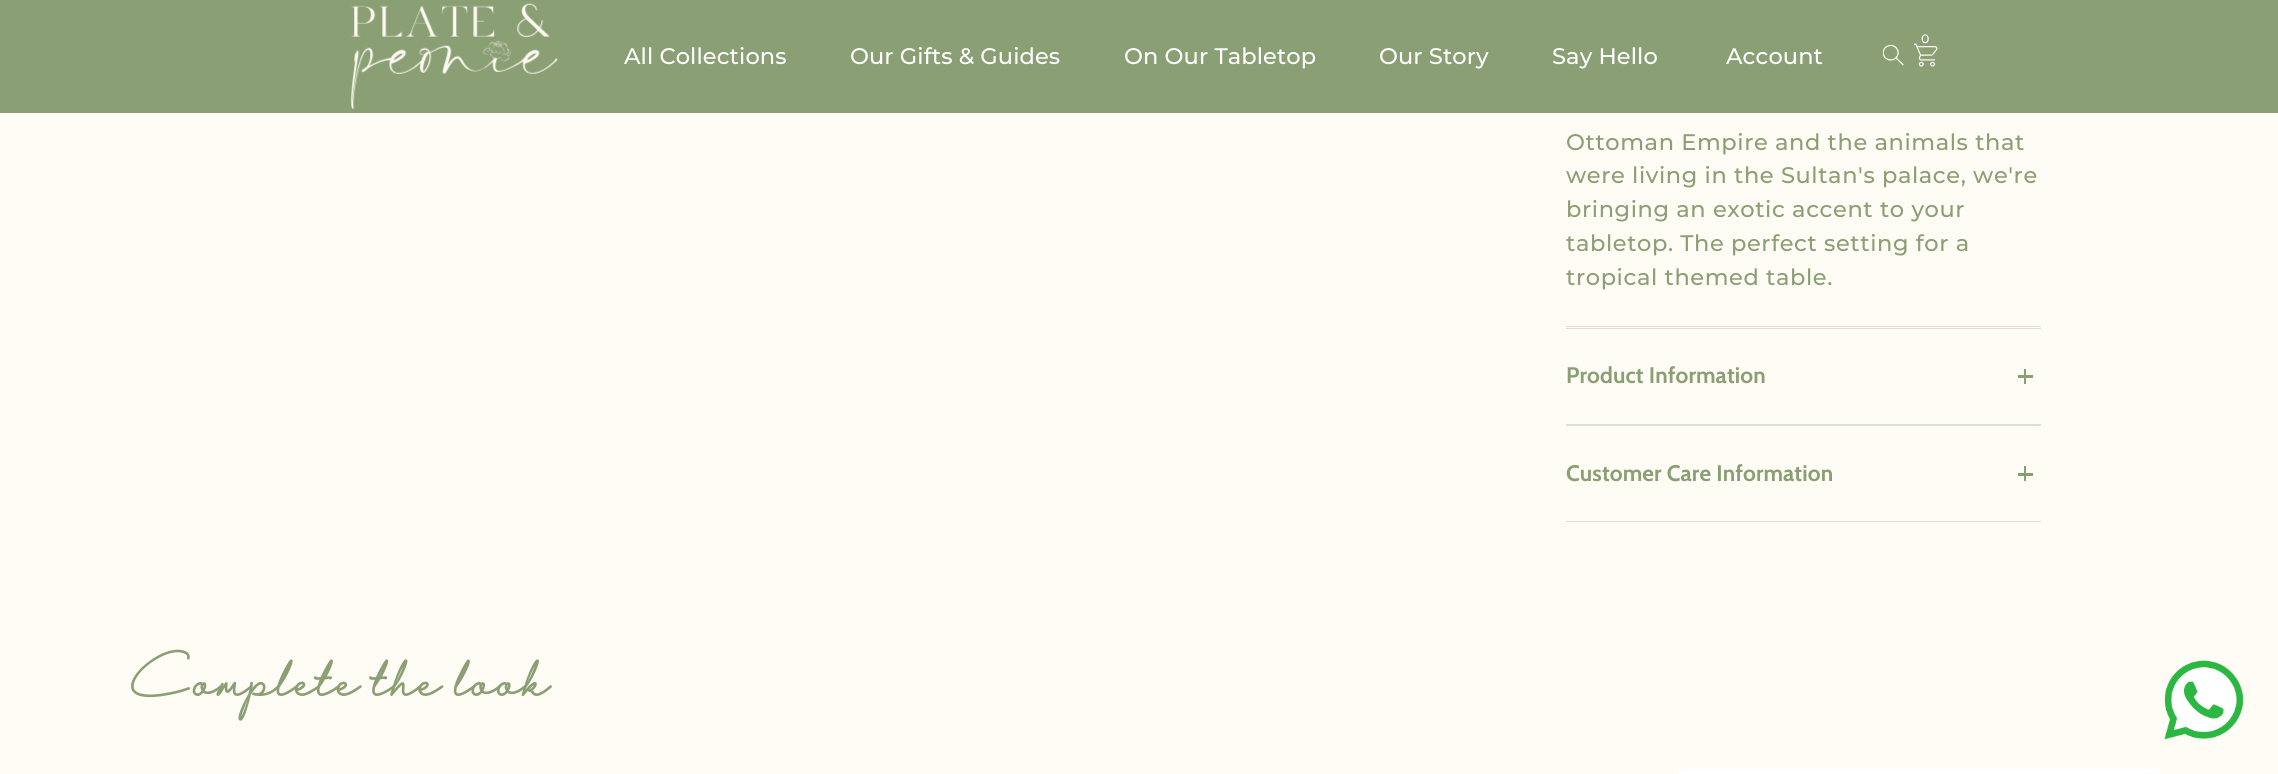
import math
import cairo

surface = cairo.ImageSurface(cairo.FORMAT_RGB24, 2278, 774)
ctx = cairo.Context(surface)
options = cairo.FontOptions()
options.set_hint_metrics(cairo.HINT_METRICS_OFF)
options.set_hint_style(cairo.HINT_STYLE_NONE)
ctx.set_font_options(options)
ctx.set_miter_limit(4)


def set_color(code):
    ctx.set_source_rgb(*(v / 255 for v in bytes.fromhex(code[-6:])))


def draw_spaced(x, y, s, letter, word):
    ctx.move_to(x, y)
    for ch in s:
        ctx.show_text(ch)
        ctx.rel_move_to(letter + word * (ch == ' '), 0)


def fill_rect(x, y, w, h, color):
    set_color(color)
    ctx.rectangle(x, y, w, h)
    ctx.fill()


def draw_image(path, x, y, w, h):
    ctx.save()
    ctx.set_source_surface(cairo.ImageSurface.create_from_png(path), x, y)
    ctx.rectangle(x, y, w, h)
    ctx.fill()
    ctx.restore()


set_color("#fffcf5")
ctx.paint()
fill_rect(0, 0, 2278, 113, "#8a9f74")
draw_image("assets/img1.png", 351, 3, 207, 106)
ctx.select_font_face("Montserrat Medium")
ctx.set_font_size(22.5)
set_color("#ffffff")
draw_spaced(624, 64, "All Collections", 0.1, 0)
draw_spaced(850, 64, "Our Gifts & Guides", 0.1, 0)
draw_spaced(1124, 64, "On Our Tabletop", 0.1, 0)
draw_spaced(1379, 64, "Our Story", 0.1, 0)
draw_spaced(1552, 64, "Say Hello", 0.1, 0)
draw_image("assets/img2.png", 1914, 43, 24, 24)
ctx.select_font_face("Cabin")
ctx.set_font_size(12)
draw_spaced(1921, 43, "0", 0.1, 0)
ctx.select_font_face("Montserrat Medium")
ctx.set_font_size(22.5)
draw_spaced(1726, 64, "Account", 0.1, 0)
draw_image("assets/img3.png", 1883, 44, 21, 22)
fill_rect(1566, 326, 475, 1, "#dddddd")
set_color("#8b9f75")
draw_spaced(1566, 150, "Ottoman Empire and the animals that", 0.6, 0)
draw_spaced(1566, 183, "were living in the Sultan's palace, we're", 0.6, 0)
draw_spaced(1566, 217, "bringing an exotic accent to your", 0.6, 0)
draw_spaced(1566, 251, "tabletop. The perfect setting for a", 0.6, 0)
draw_spaced(1566, 285, "tropical themed table.", 0.6, 0)
fill_rect(1566, 328, 475, 1, "#dddddd")
fill_rect(1566, 424, 475, 2, "#dddddd")
ctx.select_font_face("Cabin", cairo.FONT_SLANT_NORMAL, cairo.FONT_WEIGHT_BOLD)
set_color("#8b9f75")
draw_spaced(1566, 383, "Product Information", 0.1, 0)
fill_rect(2018, 375, 15, 3, "#86a170")
fill_rect(2024, 369, 2, 15, "#86a170")
fill_rect(1566, 521, 475, 1, "#dddddd")
set_color("#8b9f75")
draw_spaced(1566, 481, "Customer Care Information", 0.1, 0)
fill_rect(2018, 473, 15, 3, "#86a170")
fill_rect(2024, 466, 2, 15, "#86a170")
ctx.select_font_face("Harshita", cairo.FONT_SLANT_NORMAL, cairo.FONT_WEIGHT_BOLD)
ctx.set_font_size(45)
set_color("#8b9f75")
draw_spaced(131, 696, "Complete the look", 0.1, 0)
draw_image("assets/img4.png", 1679, 769, 480, 5)
draw_image("assets/img5.png", 2164, 660, 80, 80)
surface.write_to_png("output.png")
